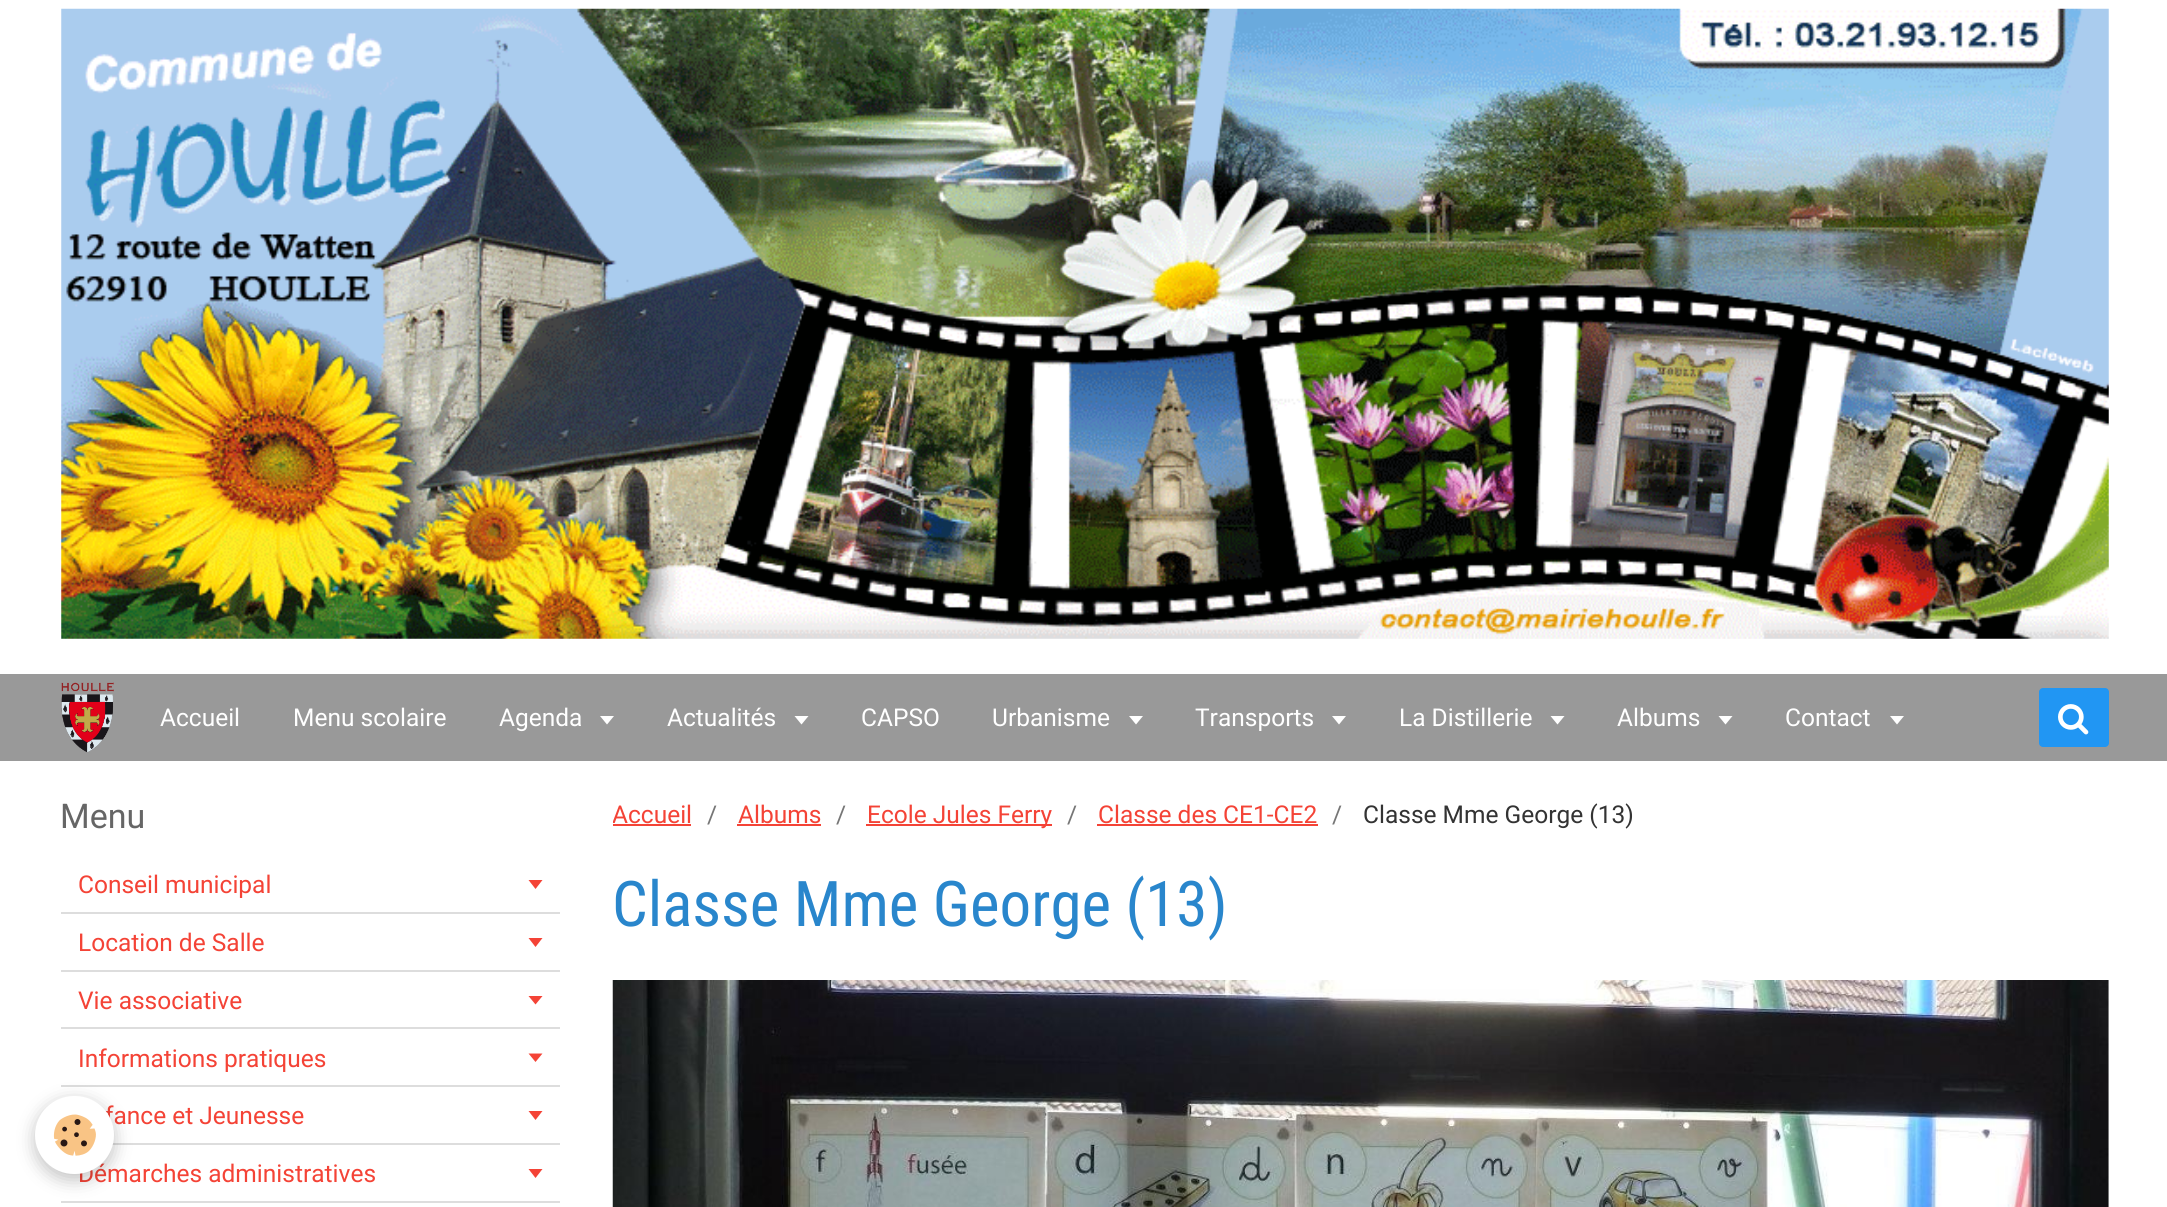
import math
import cairo

surface = cairo.ImageSurface(cairo.FORMAT_RGB24, 2167, 1207)
ctx = cairo.Context(surface)
options = cairo.FontOptions()
options.set_hint_metrics(cairo.HINT_METRICS_OFF)
options.set_hint_style(cairo.HINT_STYLE_NONE)
ctx.set_font_options(options)
ctx.set_miter_limit(4)


def set_color(code):
    ctx.set_source_rgb(*(v / 255 for v in bytes.fromhex(code[-6:])))


def draw_text(x, y, s, family, size, color, bold=False, italic=False):
    ctx.select_font_face(family, cairo.FONT_SLANT_ITALIC if italic else cairo.FONT_SLANT_NORMAL, cairo.FONT_WEIGHT_BOLD if bold else cairo.FONT_WEIGHT_NORMAL)
    ctx.set_font_size(size)
    set_color(color)
    ctx.move_to(x, y)
    ctx.show_text(s)


def fill_rect(x, y, w, h, color):
    set_color(color)
    ctx.rectangle(x, y, w, h)
    ctx.fill()


def rounded_rect(x, y, w, h, r):
    ctx.new_sub_path()
    for i, (u, v) in enumerate([(x + w - r, y + h - r), (x + r, y + h - r), (x + r, y + r), (x + w - r, y + r)]):
        ctx.arc(u, v, r, i * math.pi / 2, (i + 1) * math.pi / 2)
    ctx.close_path()


def draw_shadow(x, y, w, h, r, blur, alpha):
    ctx.push_group_with_content(cairo.CONTENT_ALPHA)
    ctx.set_operator(cairo.OPERATOR_SOURCE)
    for i in range(15, -16, -2):
        e = blur * i / 6
        if min(w, h) + 2 * e > 0:
            ctx.set_source_rgba(0, 0, 0, alpha * math.erfc((i - 1) / 8.5) / 2)
            rounded_rect(x - e, y - e, w + 2 * e, h + 2 * e, max(0, min(r + e + blur * .6, min(w, h) / 2 + e)))
            ctx.fill()
    ctx.mask(ctx.pop_group())


def draw_image(path, x, y, w, h):
    ctx.save()
    ctx.set_source_surface(cairo.ImageSurface.create_from_png(path), x, y)
    ctx.rectangle(x, y, w, h)
    ctx.fill()
    ctx.restore()


set_color("#ffffff")
ctx.paint()
draw_image("assets/img1.png", 61, 8, 2048, 631)
fill_rect(0, 674, 2167, 87, "#999999")
draw_image("assets/img2.png", 61, 682, 53, 71)
draw_text(160, 726, "Accueil", "Roboto", 24.5, "#ffffff")
draw_text(293, 726, "Menu scolaire", "Roboto", 24.5, "#ffffff")
draw_text(499, 726, "Agenda", "Roboto", 24.5, "#ffffff")
ctx.new_path()
ctx.move_to(600, 716)
ctx.line_to(614, 716)
ctx.line_to(607, 724.5)
ctx.close_path()
ctx.fill()
draw_text(667, 726, "Actualités", "Roboto", 24.5, "#ffffff")
ctx.new_path()
ctx.move_to(794.5, 716)
ctx.line_to(808.5, 716)
ctx.line_to(801.5, 724.5)
ctx.close_path()
ctx.fill()
draw_text(861, 726, "CAPSO", "Roboto", 24.5, "#ffffff")
draw_text(992, 726, "Urbanisme", "Roboto", 24.5, "#ffffff")
ctx.new_path()
ctx.move_to(1129, 716)
ctx.line_to(1143, 716)
ctx.line_to(1136, 724.5)
ctx.close_path()
ctx.fill()
draw_text(1195, 726, "Transports", "Roboto", 24.5, "#ffffff")
ctx.new_path()
ctx.move_to(1332, 716)
ctx.line_to(1346, 716)
ctx.line_to(1339, 724.5)
ctx.close_path()
ctx.fill()
draw_text(1399, 726, "La Distillerie", "Roboto", 24.5, "#ffffff")
ctx.new_path()
ctx.move_to(1550.5, 716)
ctx.line_to(1564.5, 716)
ctx.line_to(1557.5, 724.5)
ctx.close_path()
ctx.fill()
draw_text(1617, 726, "Albums", "Roboto", 24.5, "#ffffff")
ctx.new_path()
ctx.move_to(1718.5, 716)
ctx.line_to(1732.5, 716)
ctx.line_to(1725.5, 724.5)
ctx.close_path()
ctx.fill()
draw_text(1785, 726, "Contact", "Roboto", 24.5, "#ffffff")
ctx.new_path()
ctx.move_to(1890, 716)
ctx.line_to(1904, 716)
ctx.line_to(1897, 724.5)
ctx.close_path()
ctx.fill()
set_color("#2196f3")
rounded_rect(2039, 688, 70, 59, 4)
ctx.fill()
draw_image("assets/img3.png", 2058, 704, 31, 31)
draw_text(60, 828, "Menu", "Roboto", 34, "#666666")
fill_rect(61, 912, 499, 2, "#dddddd")
draw_text(78, 893, "Conseil municipal", "Roboto", 24.5, "#f44336")
ctx.new_path()
ctx.move_to(528.5, 880)
ctx.line_to(542.5, 880)
ctx.line_to(535.5, 889)
ctx.close_path()
ctx.fill()
fill_rect(61, 970, 499, 2, "#dddddd")
draw_text(78, 951, "Location de Salle", "Roboto", 24.5, "#f44336")
ctx.new_path()
ctx.move_to(528.5, 938)
ctx.line_to(542.5, 938)
ctx.line_to(535.5, 947)
ctx.close_path()
ctx.fill()
fill_rect(61, 1027, 499, 2, "#dddddd")
draw_text(78, 1009, "Vie associative", "Roboto", 24.5, "#f44336")
ctx.new_path()
ctx.move_to(528.5, 996)
ctx.line_to(542.5, 996)
ctx.line_to(535.5, 1004.5)
ctx.close_path()
ctx.fill()
fill_rect(61, 1085, 499, 2, "#dddddd")
draw_text(78, 1067, "Informations pratiques", "Roboto", 24.5, "#f44336")
ctx.new_path()
ctx.move_to(528.5, 1053.5)
ctx.line_to(542.5, 1053.5)
ctx.line_to(535.5, 1062)
ctx.close_path()
ctx.fill()
fill_rect(112, 1143, 448, 2, "#dddddd")
draw_text(105, 1124, "fance et Jeunesse", "Roboto", 24.5, "#f44336")
ctx.new_path()
ctx.move_to(528.5, 1111)
ctx.line_to(542.5, 1111)
ctx.line_to(535.5, 1120)
ctx.close_path()
ctx.fill()
fill_rect(61, 1201, 499, 2, "#dddddd")
draw_text(78, 1182, "Démarches administratives", "Roboto", 24.5, "#f44336")
ctx.new_path()
ctx.move_to(528.5, 1169)
ctx.line_to(542.5, 1169)
ctx.line_to(535.5, 1178)
ctx.close_path()
ctx.fill()
ctx.save()
ctx.rectangle(613, 796, 1496, 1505)
ctx.clip()
draw_text(612, 823, "Accueil", "Roboto", 24.5, "#f44336")
ctx.restore()
fill_rect(613, 824, 78, 2, "#f44336")
draw_text(707, 823, "/", "Roboto", 24.5, "#767676")
draw_text(738, 823, "Albums", "Roboto", 24.5, "#f44336")
fill_rect(737, 824, 84, 2, "#f44336")
draw_text(836, 823, "/", "Roboto", 24.5, "#767676")
fill_rect(866, 824, 186, 2, "#f44336")
draw_text(867, 823, "Ecole Jules Ferry", "Roboto", 24.5, "#f44336")
draw_text(1067, 823, "/", "Roboto", 24.5, "#767676")
draw_text(1098, 823, "Classe des CE1-CE2", "Roboto", 24.5, "#f44336")
fill_rect(1097, 824, 221, 2, "#f44336")
draw_text(1332, 823, "/", "Roboto", 24.5, "#767676")
draw_text(1363, 823, "Classe Mme George (13)", "Roboto", 24.5, "#333333")
draw_text(612, 926, "Classe Mme George (13)", "Roboto Condensed", 63, "#2986cc")
draw_image("assets/img4.png", 612, 980, 1497, 227)
set_color("#000000")
draw_shadow(35, 1101, 79, 79, 39.5, 9, 0.24)
set_color("#ffffff")
rounded_rect(35, 1096, 79, 78, 39)
ctx.fill()
draw_image("assets/img5.png", 53, 1114, 43, 42)
surface.write_to_png("output.png")
